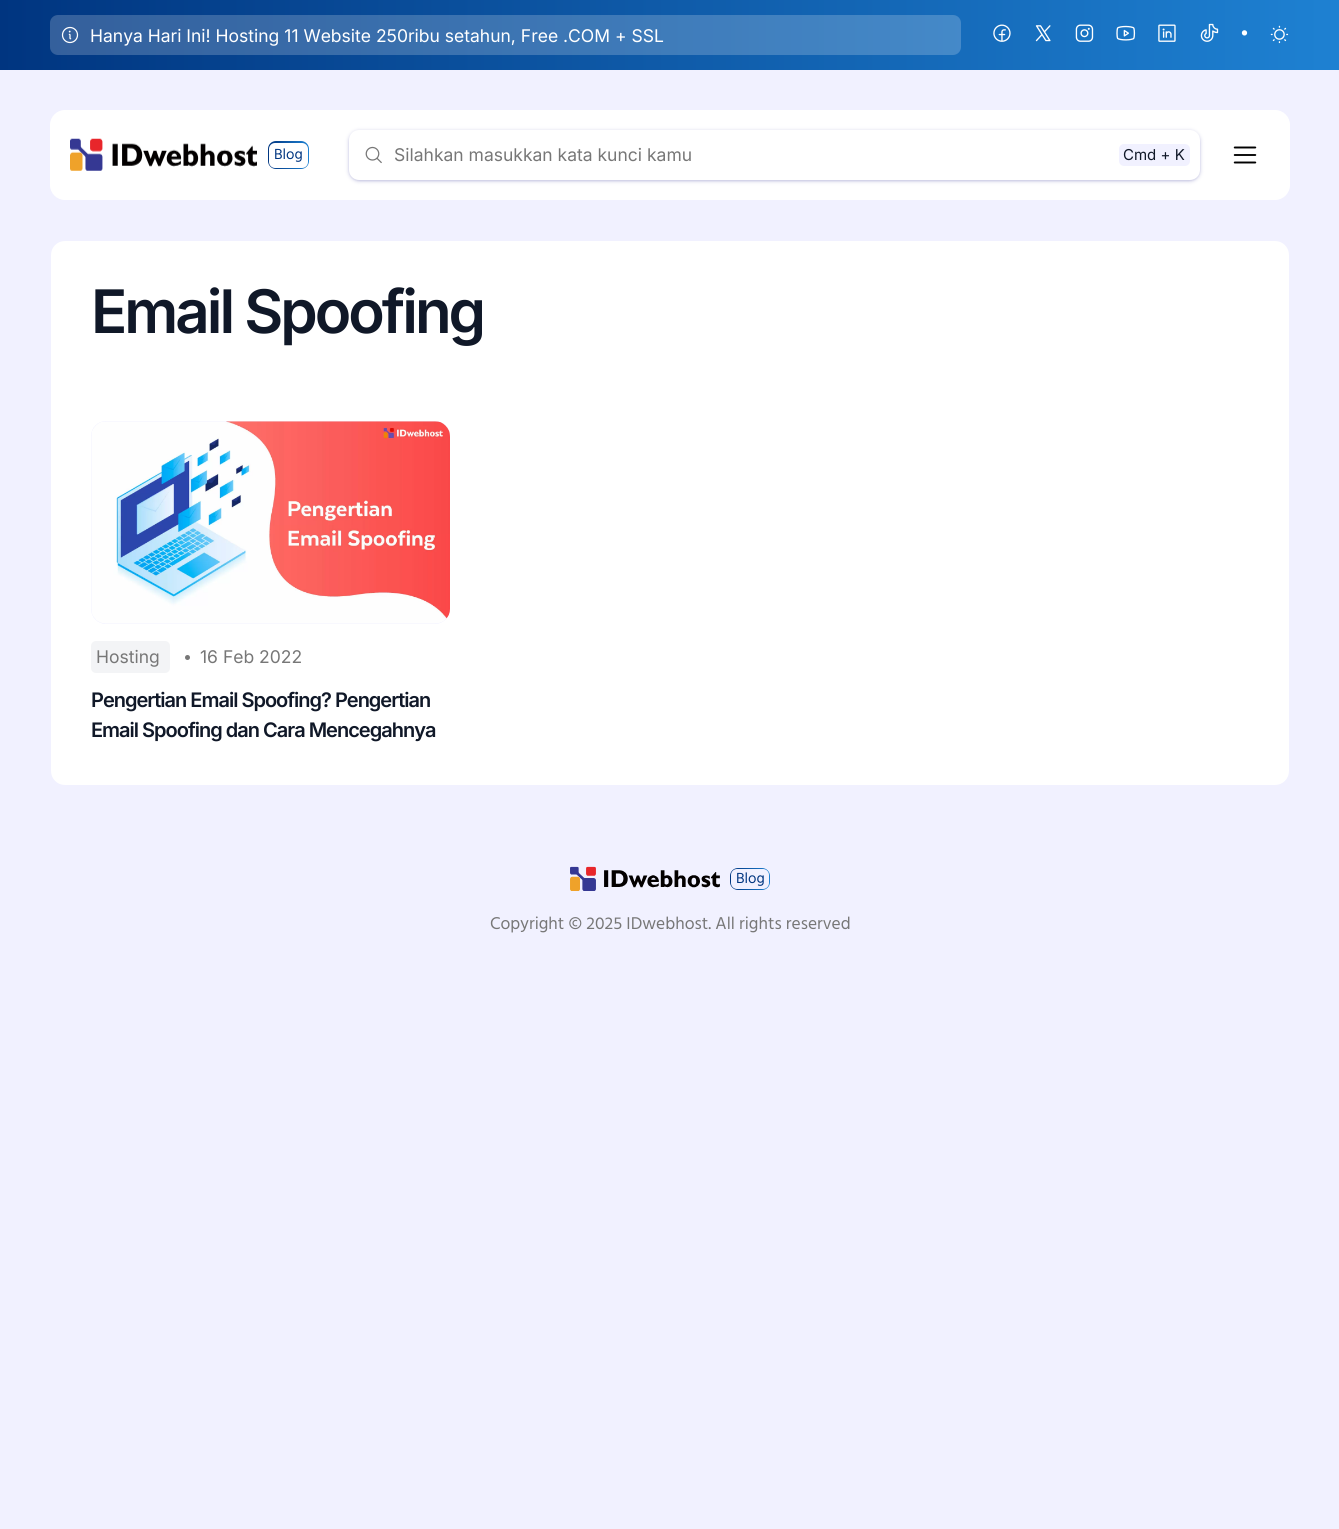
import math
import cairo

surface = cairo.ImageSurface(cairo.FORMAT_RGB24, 1339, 1529)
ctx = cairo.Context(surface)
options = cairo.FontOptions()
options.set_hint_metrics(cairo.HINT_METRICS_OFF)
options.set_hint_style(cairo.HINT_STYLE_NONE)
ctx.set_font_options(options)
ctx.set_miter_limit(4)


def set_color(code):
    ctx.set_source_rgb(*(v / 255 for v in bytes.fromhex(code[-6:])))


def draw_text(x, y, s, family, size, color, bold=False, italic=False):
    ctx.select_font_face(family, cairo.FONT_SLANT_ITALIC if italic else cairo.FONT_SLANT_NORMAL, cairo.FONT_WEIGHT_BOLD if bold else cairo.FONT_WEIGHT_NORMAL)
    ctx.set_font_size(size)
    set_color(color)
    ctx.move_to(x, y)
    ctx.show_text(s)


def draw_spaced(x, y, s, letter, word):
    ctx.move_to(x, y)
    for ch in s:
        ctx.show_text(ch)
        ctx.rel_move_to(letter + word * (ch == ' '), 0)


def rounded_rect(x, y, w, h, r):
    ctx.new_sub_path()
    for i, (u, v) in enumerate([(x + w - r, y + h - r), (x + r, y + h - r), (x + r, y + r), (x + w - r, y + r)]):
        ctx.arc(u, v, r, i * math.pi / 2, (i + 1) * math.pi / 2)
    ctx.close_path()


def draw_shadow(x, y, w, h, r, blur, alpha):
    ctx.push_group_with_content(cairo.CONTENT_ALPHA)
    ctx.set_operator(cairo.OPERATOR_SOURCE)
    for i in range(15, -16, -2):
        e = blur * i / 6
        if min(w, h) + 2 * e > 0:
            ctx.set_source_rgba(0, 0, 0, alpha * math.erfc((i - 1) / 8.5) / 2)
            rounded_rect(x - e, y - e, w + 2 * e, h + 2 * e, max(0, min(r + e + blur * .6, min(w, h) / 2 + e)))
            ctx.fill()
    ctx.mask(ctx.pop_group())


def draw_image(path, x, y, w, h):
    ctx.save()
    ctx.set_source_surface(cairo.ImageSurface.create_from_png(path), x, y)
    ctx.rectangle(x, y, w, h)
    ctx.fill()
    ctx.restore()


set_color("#f1f1ff")
ctx.paint()
gradient = cairo.LinearGradient(0, 35, 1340, 35)
gradient.add_color_stop_rgba(0, 0, 0.208, 0.502, 1)
gradient.add_color_stop_rgba(1, 0.118, 0.506, 0.824, 1)
ctx.set_source(gradient)
ctx.rectangle(0, 0, 1339, 70)
ctx.fill()
ctx.set_source_rgba(1, 1, 1, 0.2)
rounded_rect(50, 15, 911, 40, 8)
ctx.fill()
draw_image("assets/img1.png", 61, 26, 18, 18)
draw_text(90, 42, "Hanya Hari Ini! Hosting 11 Website 250ribu setahun, Free .COM + SSL", "Inter", 17.5, "#ffffff")
draw_image("assets/img2.png", 993, 24, 18, 18)
draw_image("assets/img3.png", 1035, 25, 16, 17)
draw_image("assets/img4.png", 1075, 24, 19, 18)
draw_image("assets/img5.png", 1116, 25, 20, 16)
draw_image("assets/img6.png", 1158, 24, 18, 18)
draw_image("assets/img7.png", 1200, 23, 19, 19)
draw_text(1240, 40, "•", "Hind", 20, "#ffffff")
draw_image("assets/img8.png", 1270, 25, 19, 19)
rounded_rect(50, 110, 1240, 90, 15)
ctx.fill()
draw_image("assets/img9.png", 70, 138, 187, 33)
gradient = cairo.LinearGradient(268, 155, 309, 155)
gradient.add_color_stop_rgba(0, 0, 0.208, 0.502, 1)
gradient.add_color_stop_rgba(1, 0.118, 0.506, 0.824, 1)
ctx.set_source(gradient)
rounded_rect(268, 141, 41, 28, 8)
ctx.fill()
set_color("#ffffff")
rounded_rect(269, 143, 39, 25, 6)
ctx.fill()
draw_text(274, 159, "Blog", "Hind", 15, "#003580")
set_color("#c4c4e1")
draw_shadow(350, 133, 849, 47, 9, 1, 1)
draw_shadow(349, 131, 851, 50, 10, 2, 1)
set_color("#ffffff")
rounded_rect(349, 130, 851, 50, 10)
ctx.fill()
draw_image("assets/img10.png", 365, 146, 17, 18)
draw_text(394, 161, "Silahkan masukkan kata kunci kamu", "Inter", 17.5, "#777777")
set_color("#f1f1ff")
rounded_rect(1119, 144, 71, 22, 5)
ctx.fill()
draw_text(1123, 160, "Cmd + K", "Inter", 15, "#101828")
draw_image("assets/img11.png", 1233, 146, 24, 18)
set_color("#ffffff")
rounded_rect(51, 241, 1238, 544, 14)
ctx.fill()
ctx.select_font_face("Inter SemiBold")
ctx.set_font_size(60)
set_color("#101828")
draw_spaced(91, 333, "Email Spoofing", -3, 0)
set_color("#f1f1ff")
rounded_rect(91, 421, 359, 203, 15)
ctx.fill()
draw_image("assets/img12.png", 91, 421, 359, 203)
set_color("#f3f4f6")
rounded_rect(91, 641, 79, 32, 5)
ctx.fill()
draw_text(96, 663, "Hosting", "Inter", 17.5, "#777777")
ctx.new_path()
ctx.arc(187.5, 657.5, 2.5, 0, 2 * math.pi)
ctx.fill()
draw_text(200, 663, "16 Feb 2022", "Inter", 17.5, "#777777")
ctx.select_font_face("Inter SemiBold")
ctx.set_font_size(20)
set_color("#101828")
draw_spaced(91, 707, "Pengertian Email Spoofing? Pengertian", -1, 0)
draw_spaced(91, 737, "Email Spoofing dan Cara Mencegahnya", -1, 0)
draw_image("assets/img13.png", 570, 866, 150, 25)
gradient = cairo.LinearGradient(730, 879, 770, 879)
gradient.add_color_stop_rgba(0, 0, 0.208, 0.502, 1)
gradient.add_color_stop_rgba(1, 0.118, 0.506, 0.824, 1)
ctx.set_source(gradient)
rounded_rect(730, 868, 40, 22, 8)
ctx.fill()
set_color("#f1f1ff")
rounded_rect(731, 869, 38, 20, 6)
ctx.fill()
draw_text(736, 883, "Blog", "Hind", 15, "#003580")
draw_text(490, 929, "Copyright © 2025 IDwebhost. All rights reserved", "Hind", 17.5, "#777777")
surface.write_to_png("output.png")
